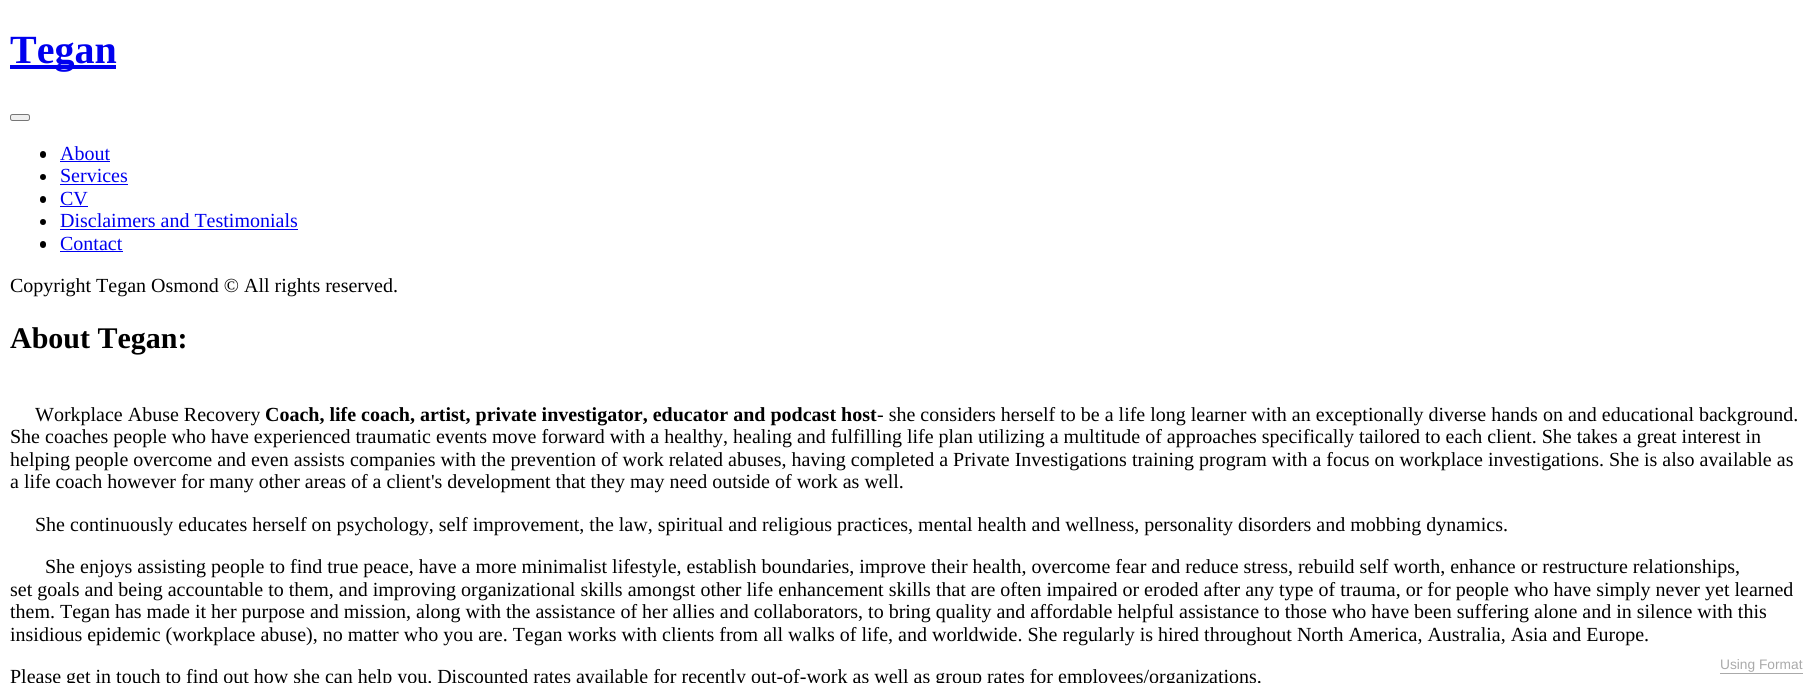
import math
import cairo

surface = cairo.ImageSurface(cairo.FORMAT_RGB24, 1814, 683)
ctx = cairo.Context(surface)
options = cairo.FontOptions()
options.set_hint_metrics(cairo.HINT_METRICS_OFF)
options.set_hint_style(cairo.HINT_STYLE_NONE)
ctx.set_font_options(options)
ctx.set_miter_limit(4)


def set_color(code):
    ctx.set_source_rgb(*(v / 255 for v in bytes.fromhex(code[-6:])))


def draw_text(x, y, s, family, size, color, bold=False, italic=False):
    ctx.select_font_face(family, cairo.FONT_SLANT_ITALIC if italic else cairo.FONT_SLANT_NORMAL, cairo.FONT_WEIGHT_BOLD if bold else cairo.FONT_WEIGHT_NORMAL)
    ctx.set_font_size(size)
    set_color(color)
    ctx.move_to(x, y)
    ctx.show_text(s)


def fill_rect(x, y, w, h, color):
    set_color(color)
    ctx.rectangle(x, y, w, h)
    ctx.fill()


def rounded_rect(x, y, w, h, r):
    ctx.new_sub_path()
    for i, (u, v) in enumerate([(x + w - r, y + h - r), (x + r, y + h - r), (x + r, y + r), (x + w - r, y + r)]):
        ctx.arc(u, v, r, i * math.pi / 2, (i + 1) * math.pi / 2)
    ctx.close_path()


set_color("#ffffff")
ctx.paint()
fill_rect(10, 65, 106, 4, "#0000ee")
draw_text(10, 63, "Tegan", "Liberation Serif", 40, "#0000ee", bold=True)
set_color("#efefef")
rounded_rect(10.5, 114.5, 19, 6, 2)
ctx.fill_preserve()
set_color("#767676")
ctx.set_line_width(1)
ctx.stroke()
set_color("#000000")
rounded_rect(40, 151, 6, 7, 3)
ctx.fill()
draw_text(60, 160, "About", "Liberation Serif", 20, "#0000ee")
fill_rect(60, 161, 50, 1, "#0000ee")
set_color("#000000")
ctx.new_path()
ctx.arc(43, 177, 3, 0, 2 * math.pi)
ctx.fill()
draw_text(60, 182, "Services", "Liberation Serif", 20, "#0000ee")
fill_rect(60, 184, 68, 1, "#0000ee")
set_color("#000000")
rounded_rect(40, 196, 6, 7, 3)
ctx.fill()
draw_text(60, 205, "CV", "Liberation Serif", 20, "#0000ee")
fill_rect(60, 206, 28, 1, "#0000ee")
set_color("#000000")
ctx.new_path()
ctx.arc(43, 222, 3, 0, 2 * math.pi)
ctx.fill()
draw_text(60, 227, "Disclaimers and Testimonials", "Liberation Serif", 20, "#0000ee")
fill_rect(60, 229, 238, 1, "#0000ee")
set_color("#000000")
rounded_rect(40, 241, 6, 7, 3)
ctx.fill()
draw_text(60, 250, "Contact", "Liberation Serif", 20, "#0000ee")
fill_rect(60, 251, 63, 1, "#0000ee")
draw_text(10, 292, "Copyright Tegan Osmond © All rights reserved.", "Liberation Serif", 20, "#000000")
draw_text(10, 348, "About Tegan:", "Liberation Serif", 30, "#000000", bold=True)
draw_text(35, 421, "Workplace Abuse Recovery", "Liberation Serif", 20, "#000000")
draw_text(265, 421, "Coach, life coach, artist, private investigator, educator and podcast host", "Liberation Serif", 20, "#000000", bold=True)
draw_text(877, 421, "- she considers herself to be a life long learner with an exceptionally diverse hands on and educational background.", "Liberation Serif", 20, "#000000")
draw_text(10, 443, "She coaches people who have experienced traumatic events move forward with a healthy, healing and fulfilling life plan utilizing a multitude of approaches specifically tailored to each client. She takes a great interest in", "Liberation Serif", 20, "#000000")
draw_text(10, 466, "helping people overcome and even assists companies with the prevention of work related abuses, having completed a Private Investigations training program with a focus on workplace investigations. She is also available as", "Liberation Serif", 20, "#000000")
draw_text(10, 488, "a life coach however for many other areas of a client's development that they may need outside of work as well.", "Liberation Serif", 20, "#000000")
draw_text(35, 531, "She continuously educates herself on psychology, self improvement, the law, spiritual and religious practices, mental health and wellness, personality disorders and mobbing dynamics.", "Liberation Serif", 20, "#000000")
draw_text(45, 573, "She enjoys assisting people to find true peace, have a more minimalist lifestyle, establish boundaries, improve their health, overcome fear and reduce stress, rebuild self worth, enhance or restructure relationships,", "Liberation Serif", 20, "#000000")
draw_text(10, 596, "set goals and being accountable to them, and improving organizational skills amongst other life enhancement skills that are often impaired or eroded after any type of trauma, or for people who have simply never yet learned", "Liberation Serif", 20, "#000000")
draw_text(10, 618, "them. Tegan has made it her purpose and mission, along with the assistance of her allies and collaborators, to bring quality and affordable helpful assistance to those who have been suffering alone and in silence with this", "Liberation Serif", 20, "#000000")
draw_text(10, 641, "insidious epidemic (workplace abuse), no matter who you are. Tegan works with clients from all walks of life, and worldwide. She regularly is hired throughout North America, Australia, Asia and Europe.", "Liberation Serif", 20, "#000000")
draw_text(10, 683, "Please get in touch to find out how she can help you. Discounted rates available for recently out-of-work as well as group rates for employees/organizations.", "Liberation Serif", 20, "#000000")
draw_text(1720, 669, "Using Format", "Liberation Sans", 13.75, "#aaaaaa")
fill_rect(1720, 673, 83, 1, "#aaaaaa")
surface.write_to_png("output.png")
